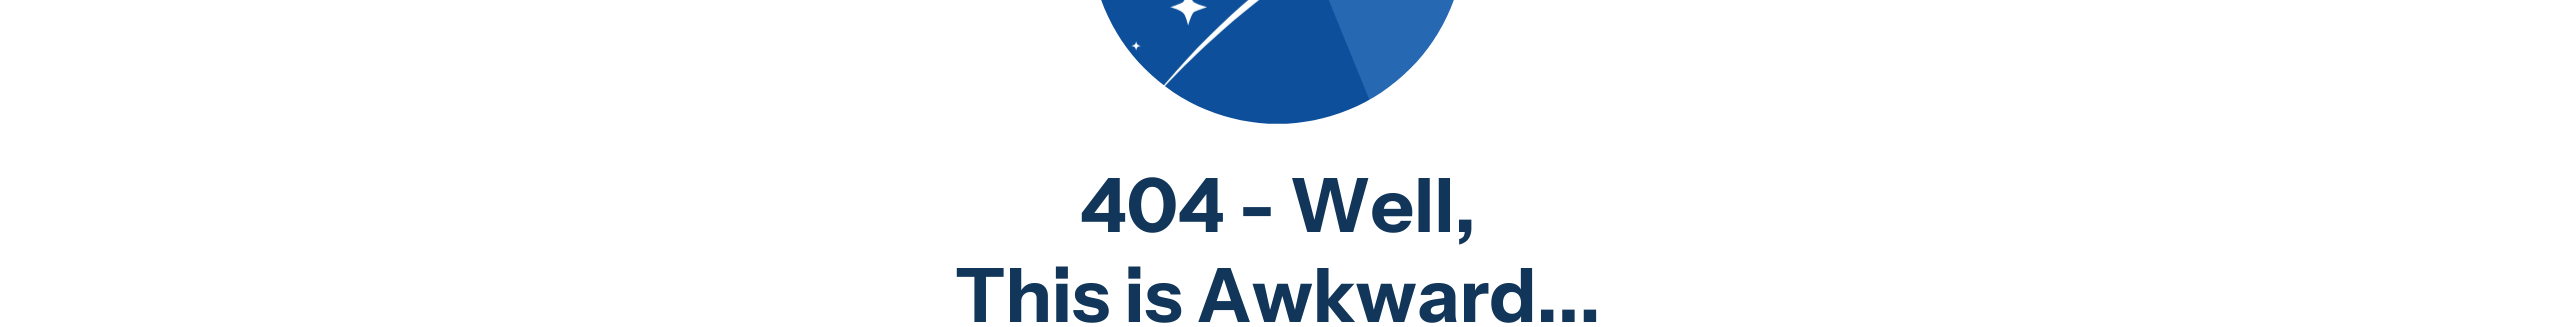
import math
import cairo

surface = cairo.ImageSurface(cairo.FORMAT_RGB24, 2555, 327)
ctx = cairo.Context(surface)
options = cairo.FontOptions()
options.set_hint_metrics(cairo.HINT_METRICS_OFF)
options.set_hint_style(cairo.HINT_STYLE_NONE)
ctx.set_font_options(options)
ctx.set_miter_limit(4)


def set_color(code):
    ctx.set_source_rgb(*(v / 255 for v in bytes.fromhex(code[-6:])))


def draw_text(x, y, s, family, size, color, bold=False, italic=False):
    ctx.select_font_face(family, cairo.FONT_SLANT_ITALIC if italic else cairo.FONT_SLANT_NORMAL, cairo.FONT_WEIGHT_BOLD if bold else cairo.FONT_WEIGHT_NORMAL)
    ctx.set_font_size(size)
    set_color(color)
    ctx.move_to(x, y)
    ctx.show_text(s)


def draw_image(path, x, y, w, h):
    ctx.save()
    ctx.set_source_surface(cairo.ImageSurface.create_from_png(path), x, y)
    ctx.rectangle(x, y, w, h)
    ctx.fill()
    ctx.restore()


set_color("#ffffff")
ctx.paint()
draw_image("assets/img1.png", 1101, 0, 353, 124)
draw_text(1080, 232, "404 - Well,", "Instrument Sans", 75, "#11365a", bold=True)
draw_text(955, 322, "This is Awkward...", "Instrument Sans", 75, "#11365a", bold=True)
surface.write_to_png("output.png")
